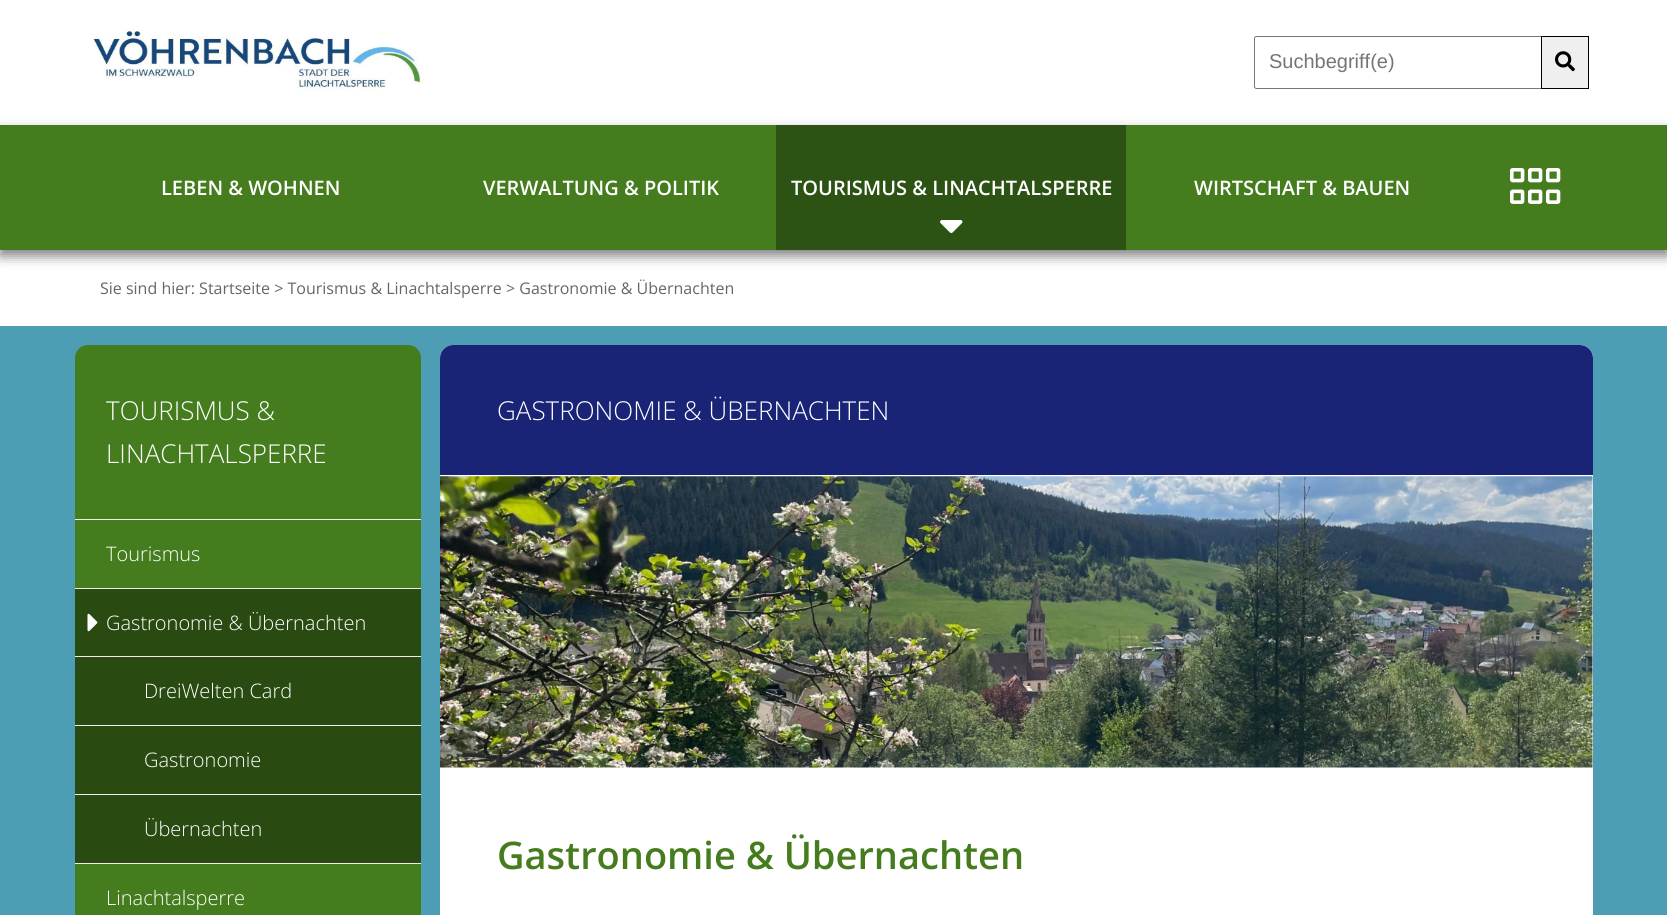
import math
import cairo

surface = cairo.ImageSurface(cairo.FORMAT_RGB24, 1667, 915)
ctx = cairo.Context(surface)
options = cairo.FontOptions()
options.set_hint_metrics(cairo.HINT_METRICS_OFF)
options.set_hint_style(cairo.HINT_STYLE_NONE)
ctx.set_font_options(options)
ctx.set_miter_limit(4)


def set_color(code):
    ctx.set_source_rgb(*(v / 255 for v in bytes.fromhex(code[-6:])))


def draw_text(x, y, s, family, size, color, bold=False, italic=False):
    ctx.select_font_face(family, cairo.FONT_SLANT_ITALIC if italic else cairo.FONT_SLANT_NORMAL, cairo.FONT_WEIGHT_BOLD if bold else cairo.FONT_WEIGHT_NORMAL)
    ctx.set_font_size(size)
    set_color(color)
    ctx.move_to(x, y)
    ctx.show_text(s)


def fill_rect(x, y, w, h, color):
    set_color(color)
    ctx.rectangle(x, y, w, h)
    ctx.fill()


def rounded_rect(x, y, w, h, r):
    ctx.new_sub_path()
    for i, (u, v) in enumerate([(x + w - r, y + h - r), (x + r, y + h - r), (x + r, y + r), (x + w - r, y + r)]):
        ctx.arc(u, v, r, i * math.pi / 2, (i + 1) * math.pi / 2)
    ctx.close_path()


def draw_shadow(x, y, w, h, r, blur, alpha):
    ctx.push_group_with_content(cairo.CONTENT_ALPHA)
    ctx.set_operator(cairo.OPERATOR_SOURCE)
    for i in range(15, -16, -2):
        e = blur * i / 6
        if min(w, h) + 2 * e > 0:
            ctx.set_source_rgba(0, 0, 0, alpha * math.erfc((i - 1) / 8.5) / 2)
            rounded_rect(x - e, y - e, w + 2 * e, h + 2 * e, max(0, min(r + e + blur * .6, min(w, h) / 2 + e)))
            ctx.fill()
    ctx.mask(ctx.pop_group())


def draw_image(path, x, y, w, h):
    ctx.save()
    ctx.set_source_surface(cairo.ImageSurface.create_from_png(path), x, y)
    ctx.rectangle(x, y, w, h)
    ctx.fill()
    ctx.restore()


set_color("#4d9db4")
ctx.paint()
fill_rect(0, 0, 1667, 125, "#ffffff")
draw_image("assets/img1.png", 93, 31, 329, 58)
rounded_rect(1254.5, 36.5, 288, 52, 2)
set_color("#767676")
ctx.set_line_width(1)
ctx.stroke()
draw_text(1269, 68, "Suchbegriff(e)", "Liberation Sans", 20, "#757575")
set_color("#efefef")
ctx.rectangle(1541.5, 36.5, 47, 52)
ctx.fill_preserve()
set_color("#000000")
ctx.stroke()
draw_image("assets/img2.png", 1555, 51, 20, 21)
fill_rect(0, 250, 1667, 76, "#ffffff")
set_color("#000000")
draw_shadow(0, 131, 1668, 125, 0, 6, 0.5)
fill_rect(0, 125, 1667, 125, "#447c1e")
draw_text(161, 195, "LEBEN & WOHNEN", "Open Sans SemiBold", 20, "#ffffff")
draw_text(483, 195, "VERWALTUNG & POLITIK", "Open Sans SemiBold", 20, "#ffffff")
fill_rect(776, 125, 350, 125, "#2d5314")
draw_text(791, 195, "TOURISMUS & LINACHTALSPERRE", "Open Sans SemiBold", 20, "#ffffff")
draw_image("assets/img3.png", 940, 220, 23, 13)
draw_text(1194, 195, "WIRTSCHAFT & BAUEN", "Open Sans SemiBold", 20, "#ffffff")
draw_image("assets/img4.png", 1510, 168, 51, 36)
draw_text(100, 294, "Sie sind hier: Startseite > Tourismus & Linachtalsperre > Gastronomie & Übernachten", "Open Sans", 16, "#666666")
set_color("#447c1e")
rounded_rect(75, 345, 346, 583, 13)
ctx.fill()
fill_rect(75, 519, 346, 1, "#efefef")
draw_text(106, 420, "TOURISMUS &", "Open Sans Light", 26, "#ffffff")
draw_text(106, 463, "LINACHTALSPERRE", "Open Sans Light", 26, "#ffffff")
fill_rect(75, 588, 346, 1, "#efefef")
draw_text(106, 561, "Tourismus", "Open Sans Light", 20, "#ffffff")
fill_rect(75, 589, 346, 274, "#294b12")
fill_rect(75, 656, 346, 1, "#efefef")
draw_image("assets/img5.png", 87, 613, 11, 19)
draw_text(106, 630, "Gastronomie & Übernachten", "Open Sans Light", 20, "#ffffff")
fill_rect(75, 725, 346, 1, "#efefef")
draw_text(144, 698, "DreiWelten Card", "Open Sans Light", 20, "#ffffff")
fill_rect(75, 794, 346, 1, "#efefef")
draw_text(144, 767, "Gastronomie", "Open Sans Light", 20, "#ffffff")
fill_rect(75, 863, 346, 1, "#efefef")
draw_text(144, 836, "Übernachten", "Open Sans Light", 20, "#ffffff")
draw_text(106, 905, "Linachtalsperre", "Open Sans Light", 20, "#ffffff")
rounded_rect(440, 345, 1153, 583, 13)
ctx.fill()
set_color("#1a2476")
ctx.new_path()
ctx.move_to(453, 345)
ctx.line_to(1580, 345)
ctx.curve_to(1587, 345, 1593, 351, 1593, 358)
ctx.line_to(1593, 476)
ctx.line_to(440, 476)
ctx.line_to(440, 358)
ctx.curve_to(440, 351, 446, 345, 453, 345)
ctx.close_path()
ctx.fill()
fill_rect(440, 475, 1153, 1, "#ffffff")
draw_text(497, 420, "GASTRONOMIE & ÜBERNACHTEN", "Open Sans Light", 26, "#ffffff")
draw_image("assets/img6.png", 440, 476, 1153, 292)
draw_text(497, 869, "Gastronomie & Übernachten", "Open Sans SemiBold", 38, "#447c1e")
surface.write_to_png("output.png")
